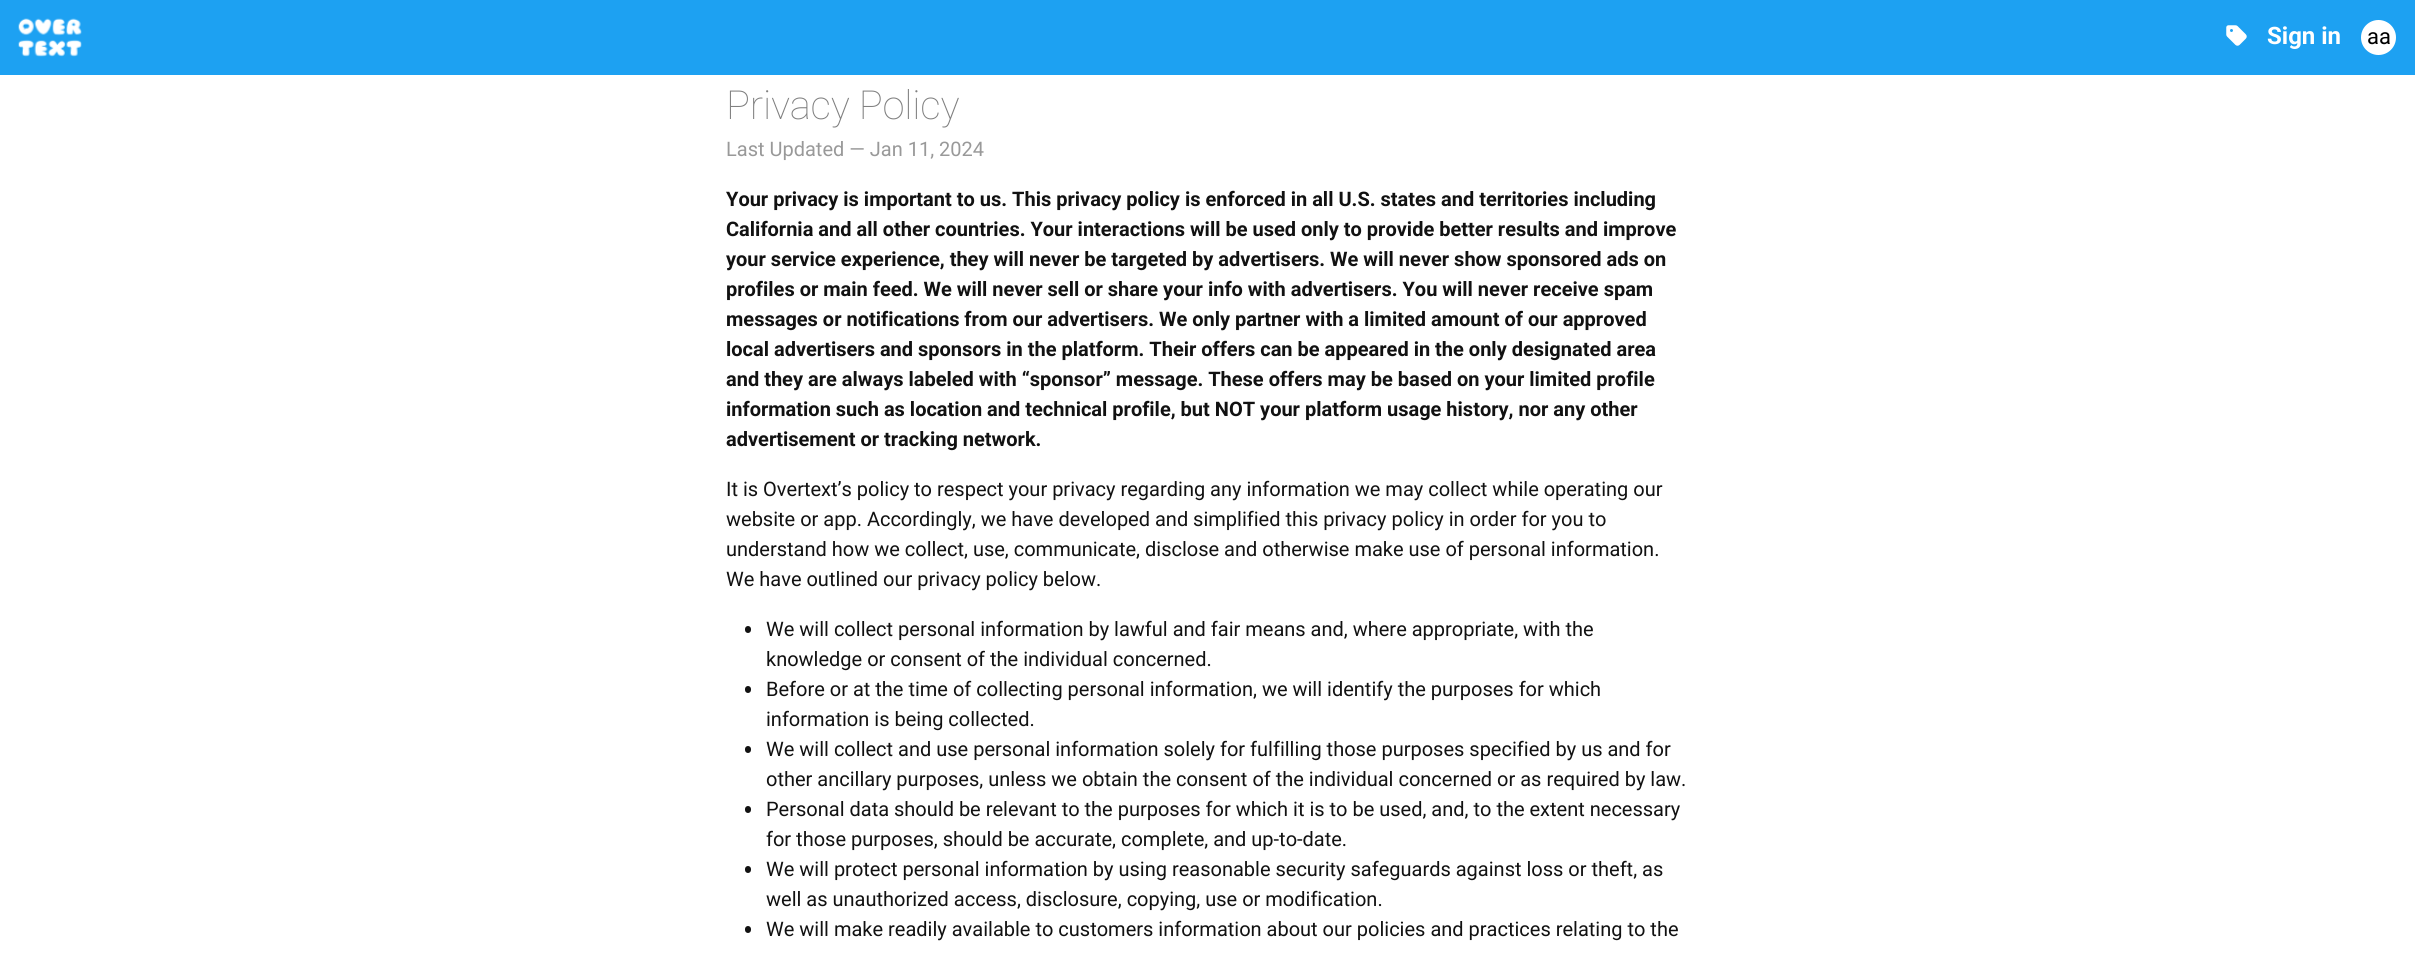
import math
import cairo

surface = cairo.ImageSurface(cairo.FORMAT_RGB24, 2415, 961)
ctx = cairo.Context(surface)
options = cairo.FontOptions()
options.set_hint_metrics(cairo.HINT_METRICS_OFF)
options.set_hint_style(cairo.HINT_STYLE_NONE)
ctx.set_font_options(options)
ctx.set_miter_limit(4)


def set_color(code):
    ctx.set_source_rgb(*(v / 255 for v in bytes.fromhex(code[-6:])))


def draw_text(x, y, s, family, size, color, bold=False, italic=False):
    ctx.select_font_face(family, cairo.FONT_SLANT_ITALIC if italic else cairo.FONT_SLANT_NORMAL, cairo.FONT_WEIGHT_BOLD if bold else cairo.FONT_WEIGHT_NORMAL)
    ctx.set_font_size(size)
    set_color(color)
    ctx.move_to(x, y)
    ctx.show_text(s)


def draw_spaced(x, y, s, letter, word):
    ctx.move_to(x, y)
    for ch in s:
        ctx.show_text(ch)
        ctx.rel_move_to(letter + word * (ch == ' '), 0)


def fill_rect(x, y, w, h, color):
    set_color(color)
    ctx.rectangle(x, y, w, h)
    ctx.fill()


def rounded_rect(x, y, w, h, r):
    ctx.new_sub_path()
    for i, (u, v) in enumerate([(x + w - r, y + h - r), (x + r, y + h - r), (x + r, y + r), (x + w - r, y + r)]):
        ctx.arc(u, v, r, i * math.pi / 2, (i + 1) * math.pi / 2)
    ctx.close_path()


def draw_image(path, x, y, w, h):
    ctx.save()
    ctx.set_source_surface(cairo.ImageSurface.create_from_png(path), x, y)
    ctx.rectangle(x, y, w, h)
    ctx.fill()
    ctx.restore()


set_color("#ffffff")
ctx.paint()
fill_rect(0, 0, 2415, 75, "#1da1f2")
draw_image("assets/img1.png", 18, 18, 64, 39)
draw_image("assets/img2.png", 2226, 25, 21, 21)
draw_text(2267, 44, "Sign in", "Roboto", 24, "#ffffff", bold=True)
ctx.new_path()
ctx.arc(2378.5, 37.5, 17.5, 0, 2 * math.pi)
ctx.fill()
draw_text(2367, 44, "aa", "Roboto", 22, "#000000")
ctx.select_font_face("Roboto Thin")
ctx.set_font_size(40)
set_color("#808080")
draw_spaced(726, 119, "Privacy Policy", -0.25, 0)
draw_text(726, 156, "Last Updated — Jan 11, 2024", "Roboto", 20, "#999999")
draw_text(726, 206, "Your privacy is important to us. This privacy policy is enforced in all U.S. states and territories including", "Roboto", 20, "#111111", bold=True)
draw_text(726, 236, "California and all other countries. Your interactions will be used only to provide better results and improve", "Roboto", 20, "#111111", bold=True)
draw_text(726, 266, "your service experience, they will never be targeted by advertisers. We will never show sponsored ads on", "Roboto", 20, "#111111", bold=True)
draw_text(726, 296, "profiles or main feed. We will never sell or share your info with advertisers. You will never receive spam", "Roboto", 20, "#111111", bold=True)
draw_text(726, 326, "messages or notifications from our advertisers. We only partner with a limited amount of our approved", "Roboto", 20, "#111111", bold=True)
draw_text(726, 356, "local advertisers and sponsors in the platform. Their offers can be appeared in the only designated area", "Roboto", 20, "#111111", bold=True)
draw_text(726, 386, "and they are always labeled with “sponsor” message. These offers may be based on your limited profile", "Roboto", 20, "#111111", bold=True)
draw_text(726, 416, "information such as location and technical profile, but NOT your platform usage history, nor any other", "Roboto", 20, "#111111", bold=True)
draw_text(726, 446, "advertisement or tracking network.", "Roboto", 20, "#111111", bold=True)
draw_text(726, 496, "It is Overtext’s policy to respect your privacy regarding any information we may collect while operating our", "Roboto", 20, "#111111")
draw_text(726, 526, "website or app. Accordingly, we have developed and simplified this privacy policy in order for you to", "Roboto", 20, "#111111")
draw_text(726, 556, "understand how we collect, use, communicate, disclose and otherwise make use of personal information.", "Roboto", 20, "#111111")
draw_text(726, 586, "We have outlined our privacy policy below.", "Roboto", 20, "#111111")
rounded_rect(745, 626, 6, 7, 3)
ctx.fill()
draw_text(766, 636, "We will collect personal information by lawful and fair means and, where appropriate, with the", "Roboto", 20, "#111111")
draw_text(766, 666, "knowledge or consent of the individual concerned.", "Roboto", 20, "#111111")
rounded_rect(745, 686, 6, 7, 3)
ctx.fill()
draw_text(766, 696, "Before or at the time of collecting personal information, we will identify the purposes for which", "Roboto", 20, "#111111")
draw_text(766, 726, "information is being collected.", "Roboto", 20, "#111111")
rounded_rect(745, 746, 6, 7, 3)
ctx.fill()
draw_text(766, 756, "We will collect and use personal information solely for fulfilling those purposes specified by us and for", "Roboto", 20, "#111111")
draw_text(766, 786, "other ancillary purposes, unless we obtain the consent of the individual concerned or as required by law.", "Roboto", 20, "#111111")
rounded_rect(745, 806, 6, 7, 3)
ctx.fill()
draw_text(766, 816, "Personal data should be relevant to the purposes for which it is to be used, and, to the extent necessary", "Roboto", 20, "#111111")
draw_text(766, 846, "for those purposes, should be accurate, complete, and up-to-date.", "Roboto", 20, "#111111")
rounded_rect(745, 866, 6, 7, 3)
ctx.fill()
draw_text(766, 876, "We will protect personal information by using reasonable security safeguards against loss or theft, as", "Roboto", 20, "#111111")
draw_text(766, 906, "well as unauthorized access, disclosure, copying, use or modification.", "Roboto", 20, "#111111")
rounded_rect(745, 926, 6, 7, 3)
ctx.fill()
draw_text(766, 936, "We will make readily available to customers information about our policies and practices relating to the", "Roboto", 20, "#111111")
surface.write_to_png("output.png")
